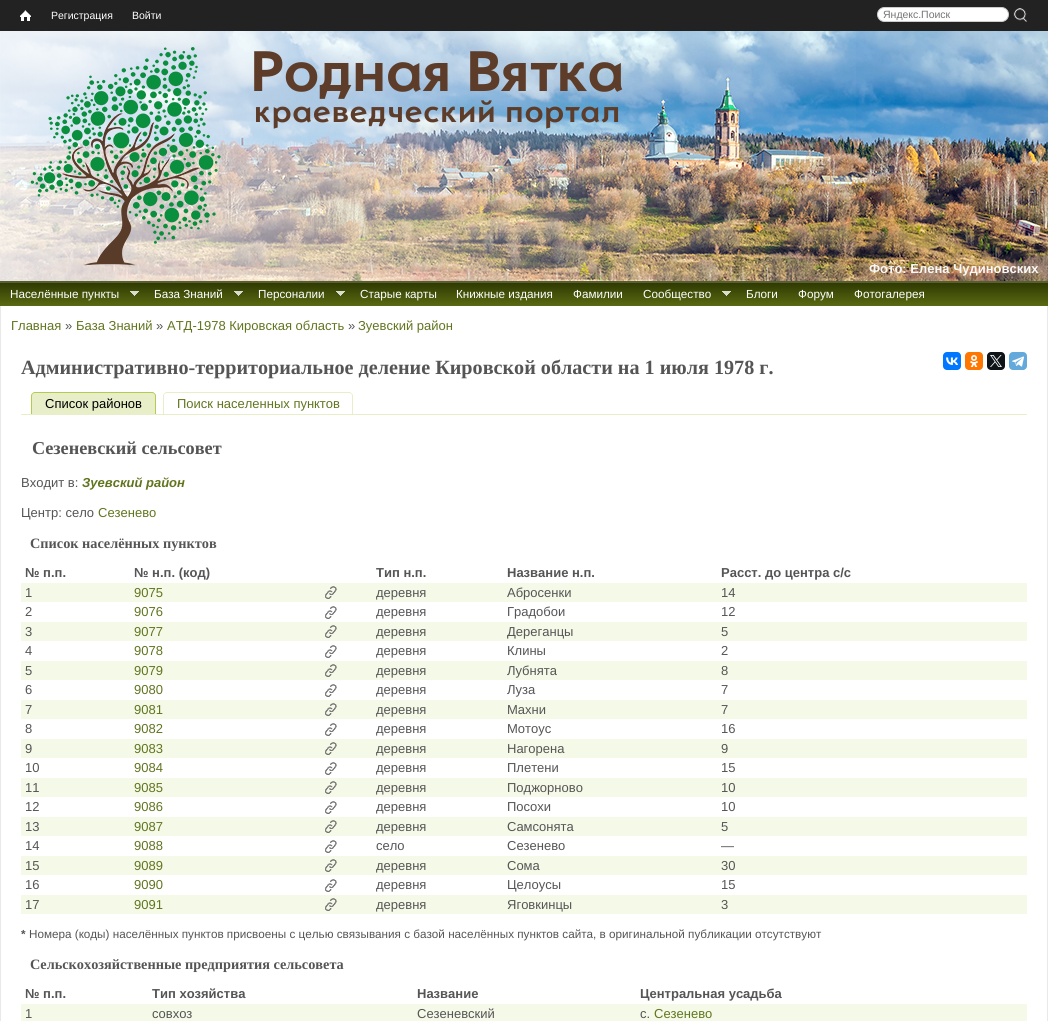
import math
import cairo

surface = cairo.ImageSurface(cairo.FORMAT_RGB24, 1048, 1021)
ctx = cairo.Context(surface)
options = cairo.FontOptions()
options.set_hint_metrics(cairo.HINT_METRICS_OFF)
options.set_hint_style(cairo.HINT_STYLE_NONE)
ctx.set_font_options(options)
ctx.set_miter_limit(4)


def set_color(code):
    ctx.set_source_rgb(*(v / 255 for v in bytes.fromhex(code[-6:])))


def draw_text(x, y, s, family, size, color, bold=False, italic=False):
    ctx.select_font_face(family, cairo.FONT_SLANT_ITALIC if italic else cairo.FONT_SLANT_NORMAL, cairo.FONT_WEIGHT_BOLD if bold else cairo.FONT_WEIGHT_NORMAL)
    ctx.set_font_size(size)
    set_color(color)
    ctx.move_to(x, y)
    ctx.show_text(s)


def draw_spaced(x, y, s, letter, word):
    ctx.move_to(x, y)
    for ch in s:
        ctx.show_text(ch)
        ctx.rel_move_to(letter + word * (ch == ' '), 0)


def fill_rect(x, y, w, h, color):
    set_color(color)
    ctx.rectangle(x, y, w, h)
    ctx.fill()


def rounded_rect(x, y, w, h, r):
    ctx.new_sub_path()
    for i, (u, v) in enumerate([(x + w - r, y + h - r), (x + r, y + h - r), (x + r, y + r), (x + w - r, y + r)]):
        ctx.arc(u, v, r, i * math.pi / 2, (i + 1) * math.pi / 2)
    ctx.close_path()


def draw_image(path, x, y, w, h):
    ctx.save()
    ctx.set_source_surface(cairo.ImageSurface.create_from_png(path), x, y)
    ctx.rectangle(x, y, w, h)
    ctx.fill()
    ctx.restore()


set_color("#ffffff")
ctx.paint()
fill_rect(0, 0, 1048, 31, "#222222")
draw_image("assets/img1.png", 20, 10, 11, 11)
draw_text(51, 19, "Регистрация", "Liberation Sans", 10.5, "#ffffff")
draw_text(132, 19, "Войти", "Liberation Sans", 10.5, "#ffffff")
rounded_rect(877.5, 7.5, 131, 14, 7)
ctx.fill_preserve()
set_color("#cccccc")
ctx.set_line_width(1)
ctx.stroke()
draw_text(883, 18, "Яндекс.Поиск", "Liberation Sans", 10.5, "#757575")
draw_image("assets/img2.png", 1013, 8, 14, 14)
draw_image("assets/img3.png", 0, 31, 1048, 250)
draw_image("assets/img4.png", 0, 31, 856, 250)
draw_image("assets/img5.png", 30, 47, 191, 219)
draw_text(250, 91, "Родная Вятка", "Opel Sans", 60, "#5d3d2a", bold=True)
ctx.set_font_size(32)
draw_spaced(254, 122, "краеведческий портал", 1, 0)
draw_text(869, 273, "Фото: Елена Чудиновских", "Liberation Sans", 13, "#faf9f7", bold=True)
draw_image("assets/img6.png", 0, 281, 1048, 25)
draw_image("assets/img7.png", 130, 291, 9, 5)
draw_text(10, 298, "Населённые пункты", "Liberation Sans", 11.7, "#ffffff")
draw_image("assets/img7.png", 234, 291, 9, 5)
draw_text(154, 298, "База Знаний", "Liberation Sans", 11.7, "#ffffff")
draw_image("assets/img7.png", 336, 291, 9, 5)
draw_text(258, 298, "Персоналии", "Liberation Sans", 11.7, "#ffffff")
draw_text(360, 298, "Старые карты", "Liberation Sans", 11.7, "#ffffff")
draw_text(456, 298, "Книжные издания", "Liberation Sans", 11.7, "#ffffff")
draw_text(573, 298, "Фамилии", "Liberation Sans", 11.7, "#ffffff")
draw_image("assets/img7.png", 722, 291, 9, 5)
draw_text(643, 298, "Сообщество", "Liberation Sans", 11.7, "#ffffff")
draw_text(746, 298, "Блоги", "Liberation Sans", 11.7, "#ffffff")
draw_text(798, 298, "Форум", "Liberation Sans", 11.7, "#ffffff")
draw_text(854, 298, "Фотогалерея", "Liberation Sans", 11.7, "#ffffff")
fill_rect(1047, 306, 1, 715, "#e9e9e9")
fill_rect(0, 306, 1, 715, "#e9e9e9")
draw_text(11, 330, "Главная", "Liberation Sans", 13, "#61751f")
draw_text(65, 330, "»", "Liberation Sans", 13, "#555555")
draw_text(76, 330, "База Знаний", "Liberation Sans", 13, "#61751f")
draw_text(156, 330, "»", "Liberation Sans", 13, "#555555")
draw_text(167, 330, "АТД-1978 Кировская область", "Liberation Sans", 13, "#61751f")
draw_text(348, 330, "»", "Liberation Sans", 13, "#555555")
draw_text(358, 330, "Зуевский район", "Liberation Sans", 13, "#61751f")
draw_text(21, 374, "Административно-территориальное деление Кировской области на 1 июля 1978 г.", "Liberation Serif", 20.15, "#555555", bold=True)
set_color("#0077ff")
rounded_rect(943, 352, 18, 18, 4)
ctx.fill()
draw_image("assets/img8.png", 946, 357, 12, 8)
set_color("#ff7700")
rounded_rect(965, 352, 18, 18, 4)
ctx.fill()
draw_image("assets/img9.png", 970, 355, 8, 12)
set_color("#0f1419")
rounded_rect(987, 352, 18, 18, 4)
ctx.fill()
draw_image("assets/img10.png", 990, 355, 12, 12)
set_color("#64a9dc")
rounded_rect(1009, 352, 18, 18, 4)
ctx.fill()
draw_image("assets/img11.png", 1012, 356, 12, 11)
fill_rect(21, 414, 1006, 1, "#e7eec8")
ctx.new_path()
ctx.move_to(35, 392)
ctx.line_to(152, 392)
ctx.curve_to(154, 392, 156, 394, 156, 396)
ctx.line_to(156, 414)
ctx.line_to(31, 414)
ctx.line_to(31, 396)
ctx.curve_to(31, 394, 33, 392, 35, 392)
ctx.close_path()
ctx.fill()
set_color("#b2cb52")
ctx.set_fill_rule(cairo.FILL_RULE_EVEN_ODD)
ctx.new_path()
ctx.move_to(35, 392)
ctx.line_to(152, 392)
ctx.curve_to(154, 392, 156, 394, 156, 396)
ctx.line_to(156, 414)
ctx.line_to(31, 414)
ctx.line_to(31, 396)
ctx.curve_to(31, 394, 33, 392, 35, 392)
ctx.close_path()
ctx.move_to(35, 393)
ctx.line_to(152, 393)
ctx.curve_to(154, 393, 155, 394, 155, 396)
ctx.line_to(155, 414)
ctx.line_to(32, 414)
ctx.line_to(32, 396)
ctx.curve_to(32, 394, 33, 393, 35, 393)
ctx.close_path()
ctx.fill()
draw_text(45, 408, "Список районов", "Liberation Sans", 13, "#000000")
set_color("#e7eec8")
ctx.new_path()
ctx.move_to(167, 392)
ctx.line_to(349, 392)
ctx.curve_to(351, 392, 353, 394, 353, 396)
ctx.line_to(353, 414)
ctx.line_to(163, 414)
ctx.line_to(163, 396)
ctx.curve_to(163, 394, 165, 392, 167, 392)
ctx.close_path()
ctx.move_to(167, 393)
ctx.line_to(349, 393)
ctx.curve_to(351, 393, 352, 394, 352, 396)
ctx.line_to(352, 414)
ctx.line_to(164, 414)
ctx.line_to(164, 396)
ctx.curve_to(164, 394, 165, 393, 167, 393)
ctx.close_path()
ctx.fill()
draw_text(177, 408, "Поиск населенных пунктов", "Liberation Sans", 13, "#61751f")
draw_text(32, 454, "Сезеневский сельсовет", "Liberation Serif", 18.25, "#555555", bold=True)
draw_text(21, 487, "Входит в:", "Liberation Sans", 13, "#555555")
draw_text(82, 487, "Зуевский район", "Liberation Sans", 13, "#61751f", bold=True, italic=True)
draw_text(21, 517, "Центр: село", "Liberation Sans", 13, "#555555")
draw_text(98, 517, "Сезенево", "Liberation Sans", 13, "#61751f")
draw_text(30, 548, "Список населённых пунктов", "Liberation Serif", 14.3, "#555555", bold=True)
draw_text(25, 577, "№ п.п.", "Liberation Sans", 13, "#555555", bold=True)
draw_text(134, 577, "№ н.п. (код)", "Liberation Sans", 13, "#555555", bold=True)
draw_text(376, 577, "Тип н.п.", "Liberation Sans", 13, "#555555", bold=True)
draw_text(507, 577, "Название н.п.", "Liberation Sans", 13, "#555555", bold=True)
draw_text(721, 577, "Расст. до центра с/с", "Liberation Sans", 13, "#555555", bold=True)
fill_rect(21, 583, 1006, 19, "#f5f9e8")
draw_text(25, 597, "1", "Liberation Sans", 13, "#555555")
draw_text(134, 597, "9075", "Liberation Sans", 13, "#61751f")
draw_image("assets/img12.png", 325, 586, 12, 13)
draw_text(376, 597, "деревня", "Liberation Sans", 13, "#555555")
draw_text(507, 597, "Абросенки", "Liberation Sans", 13, "#555555")
draw_text(721, 597, "14", "Liberation Sans", 13, "#555555")
draw_text(25, 616, "2", "Liberation Sans", 13, "#555555")
draw_text(134, 616, "9076", "Liberation Sans", 13, "#61751f")
draw_image("assets/img13.png", 325, 606, 12, 13)
draw_text(376, 616, "деревня", "Liberation Sans", 13, "#555555")
draw_text(507, 616, "Градобои", "Liberation Sans", 13, "#555555")
draw_text(721, 616, "12", "Liberation Sans", 13, "#555555")
fill_rect(21, 622, 1006, 19, "#f5f9e8")
draw_text(25, 636, "3", "Liberation Sans", 13, "#555555")
draw_text(134, 636, "9077", "Liberation Sans", 13, "#61751f")
draw_image("assets/img12.png", 325, 625, 12, 13)
draw_text(376, 636, "деревня", "Liberation Sans", 13, "#555555")
draw_text(507, 636, "Дереганцы", "Liberation Sans", 13, "#555555")
draw_text(721, 636, "5", "Liberation Sans", 13, "#555555")
draw_text(25, 655, "4", "Liberation Sans", 13, "#555555")
draw_text(134, 655, "9078", "Liberation Sans", 13, "#61751f")
draw_image("assets/img13.png", 325, 645, 12, 13)
draw_text(376, 655, "деревня", "Liberation Sans", 13, "#555555")
draw_text(507, 655, "Клины", "Liberation Sans", 13, "#555555")
draw_text(721, 655, "2", "Liberation Sans", 13, "#555555")
fill_rect(21, 661, 1006, 19, "#f5f9e8")
draw_text(25, 675, "5", "Liberation Sans", 13, "#555555")
draw_text(134, 675, "9079", "Liberation Sans", 13, "#61751f")
draw_image("assets/img12.png", 325, 664, 12, 13)
draw_text(376, 675, "деревня", "Liberation Sans", 13, "#555555")
draw_text(507, 675, "Лубнята", "Liberation Sans", 13, "#555555")
draw_text(721, 675, "8", "Liberation Sans", 13, "#555555")
draw_text(25, 694, "6", "Liberation Sans", 13, "#555555")
draw_text(134, 694, "9080", "Liberation Sans", 13, "#61751f")
draw_image("assets/img13.png", 325, 684, 12, 13)
draw_text(376, 694, "деревня", "Liberation Sans", 13, "#555555")
draw_text(507, 694, "Луза", "Liberation Sans", 13, "#555555")
draw_text(721, 694, "7", "Liberation Sans", 13, "#555555")
fill_rect(21, 700, 1006, 19, "#f5f9e8")
draw_text(25, 714, "7", "Liberation Sans", 13, "#555555")
draw_text(134, 714, "9081", "Liberation Sans", 13, "#61751f")
draw_image("assets/img12.png", 325, 703, 12, 13)
draw_text(376, 714, "деревня", "Liberation Sans", 13, "#555555")
draw_text(507, 714, "Махни", "Liberation Sans", 13, "#555555")
draw_text(721, 714, "7", "Liberation Sans", 13, "#555555")
draw_text(25, 733, "8", "Liberation Sans", 13, "#555555")
draw_text(134, 733, "9082", "Liberation Sans", 13, "#61751f")
draw_image("assets/img13.png", 325, 723, 12, 13)
draw_text(376, 733, "деревня", "Liberation Sans", 13, "#555555")
draw_text(507, 733, "Мотоус", "Liberation Sans", 13, "#555555")
draw_text(721, 733, "16", "Liberation Sans", 13, "#555555")
fill_rect(21, 739, 1006, 19, "#f5f9e8")
draw_text(25, 753, "9", "Liberation Sans", 13, "#555555")
draw_text(134, 753, "9083", "Liberation Sans", 13, "#61751f")
draw_image("assets/img12.png", 325, 742, 12, 13)
draw_text(376, 753, "деревня", "Liberation Sans", 13, "#555555")
draw_text(507, 753, "Нагорена", "Liberation Sans", 13, "#555555")
draw_text(721, 753, "9", "Liberation Sans", 13, "#555555")
draw_text(25, 772, "10", "Liberation Sans", 13, "#555555")
draw_text(134, 772, "9084", "Liberation Sans", 13, "#61751f")
draw_image("assets/img13.png", 325, 762, 12, 13)
draw_text(376, 772, "деревня", "Liberation Sans", 13, "#555555")
draw_text(507, 772, "Плетени", "Liberation Sans", 13, "#555555")
draw_text(721, 772, "15", "Liberation Sans", 13, "#555555")
fill_rect(21, 778, 1006, 19, "#f5f9e8")
draw_text(25, 792, "11", "Liberation Sans", 13, "#555555")
draw_text(134, 792, "9085", "Liberation Sans", 13, "#61751f")
draw_image("assets/img12.png", 325, 781, 12, 13)
draw_text(376, 792, "деревня", "Liberation Sans", 13, "#555555")
draw_text(507, 792, "Поджорново", "Liberation Sans", 13, "#555555")
draw_text(721, 792, "10", "Liberation Sans", 13, "#555555")
draw_text(25, 811, "12", "Liberation Sans", 13, "#555555")
draw_text(134, 811, "9086", "Liberation Sans", 13, "#61751f")
draw_image("assets/img13.png", 325, 801, 12, 13)
draw_text(376, 811, "деревня", "Liberation Sans", 13, "#555555")
draw_text(507, 811, "Посохи", "Liberation Sans", 13, "#555555")
draw_text(721, 811, "10", "Liberation Sans", 13, "#555555")
fill_rect(21, 817, 1006, 19, "#f5f9e8")
draw_text(25, 831, "13", "Liberation Sans", 13, "#555555")
draw_text(134, 831, "9087", "Liberation Sans", 13, "#61751f")
draw_image("assets/img12.png", 325, 820, 12, 13)
draw_text(376, 831, "деревня", "Liberation Sans", 13, "#555555")
draw_text(507, 831, "Самсонята", "Liberation Sans", 13, "#555555")
draw_text(721, 831, "5", "Liberation Sans", 13, "#555555")
draw_text(25, 850, "14", "Liberation Sans", 13, "#555555")
draw_text(134, 850, "9088", "Liberation Sans", 13, "#61751f")
draw_image("assets/img13.png", 325, 840, 12, 13)
draw_text(376, 850, "село", "Liberation Sans", 13, "#555555")
draw_text(507, 850, "Сезенево", "Liberation Sans", 13, "#555555")
draw_text(721, 850, "—", "Liberation Sans", 13, "#555555")
fill_rect(21, 856, 1006, 19, "#f5f9e8")
draw_text(25, 870, "15", "Liberation Sans", 13, "#555555")
draw_text(134, 870, "9089", "Liberation Sans", 13, "#61751f")
draw_image("assets/img12.png", 325, 859, 12, 13)
draw_text(376, 870, "деревня", "Liberation Sans", 13, "#555555")
draw_text(507, 870, "Сома", "Liberation Sans", 13, "#555555")
draw_text(721, 870, "30", "Liberation Sans", 13, "#555555")
draw_text(25, 889, "16", "Liberation Sans", 13, "#555555")
draw_text(134, 889, "9090", "Liberation Sans", 13, "#61751f")
draw_image("assets/img13.png", 325, 879, 12, 13)
draw_text(376, 889, "деревня", "Liberation Sans", 13, "#555555")
draw_text(507, 889, "Целоусы", "Liberation Sans", 13, "#555555")
draw_text(721, 889, "15", "Liberation Sans", 13, "#555555")
fill_rect(21, 895, 1006, 19, "#f5f9e8")
draw_text(25, 909, "17", "Liberation Sans", 13, "#555555")
draw_text(134, 909, "9091", "Liberation Sans", 13, "#61751f")
draw_image("assets/img12.png", 325, 898, 12, 13)
draw_text(376, 909, "деревня", "Liberation Sans", 13, "#555555")
draw_text(507, 909, "Яговкинцы", "Liberation Sans", 13, "#555555")
draw_text(721, 909, "3", "Liberation Sans", 13, "#555555")
draw_text(21, 938, "*", "Liberation Sans", 11.7, "#555555", bold=True)
draw_text(29, 938, "Номера (коды) населённых пунктов присвоены с целью связывания с базой населённых пунктов сайта, в оригинальной публикации отсутствуют", "Liberation Sans", 11.7, "#555555")
draw_text(30, 969, "Сельскохозяйственные предприятия сельсовета", "Liberation Serif", 14.3, "#555555", bold=True)
draw_text(25, 998, "№ п.п.", "Liberation Sans", 13, "#555555", bold=True)
draw_text(152, 998, "Тип хозяйства", "Liberation Sans", 13, "#555555", bold=True)
draw_text(417, 998, "Название", "Liberation Sans", 13, "#555555", bold=True)
draw_text(640, 998, "Центральная усадьба", "Liberation Sans", 13, "#555555", bold=True)
fill_rect(21, 1004, 1006, 17, "#f5f9e8")
draw_text(25, 1018, "1", "Liberation Sans", 13, "#555555")
draw_text(152, 1018, "совхоз", "Liberation Sans", 13, "#555555")
draw_text(417, 1018, "Сезеневский", "Liberation Sans", 13, "#555555")
draw_text(640, 1018, "с.", "Liberation Sans", 13, "#555555")
draw_text(654, 1018, "Сезенево", "Liberation Sans", 13, "#61751f")
surface.write_to_png("output.png")
